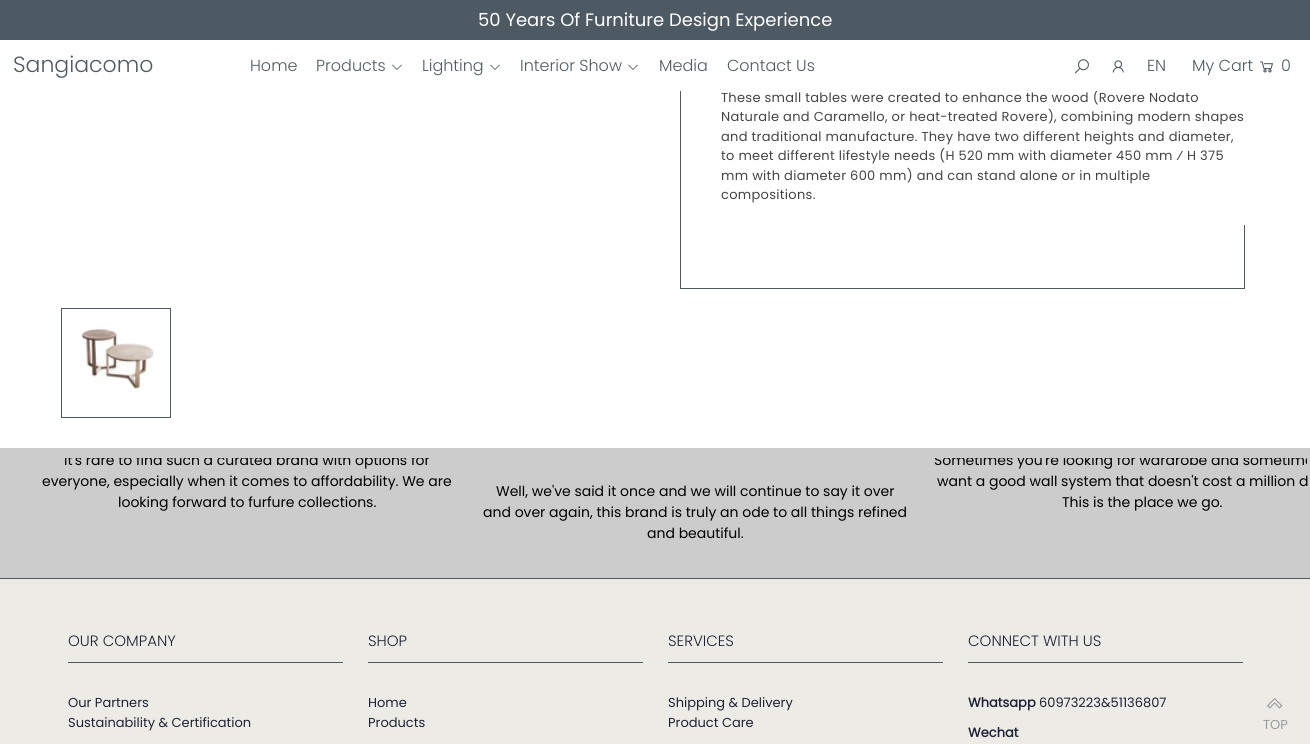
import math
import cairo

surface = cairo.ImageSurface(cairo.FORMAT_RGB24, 1310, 744)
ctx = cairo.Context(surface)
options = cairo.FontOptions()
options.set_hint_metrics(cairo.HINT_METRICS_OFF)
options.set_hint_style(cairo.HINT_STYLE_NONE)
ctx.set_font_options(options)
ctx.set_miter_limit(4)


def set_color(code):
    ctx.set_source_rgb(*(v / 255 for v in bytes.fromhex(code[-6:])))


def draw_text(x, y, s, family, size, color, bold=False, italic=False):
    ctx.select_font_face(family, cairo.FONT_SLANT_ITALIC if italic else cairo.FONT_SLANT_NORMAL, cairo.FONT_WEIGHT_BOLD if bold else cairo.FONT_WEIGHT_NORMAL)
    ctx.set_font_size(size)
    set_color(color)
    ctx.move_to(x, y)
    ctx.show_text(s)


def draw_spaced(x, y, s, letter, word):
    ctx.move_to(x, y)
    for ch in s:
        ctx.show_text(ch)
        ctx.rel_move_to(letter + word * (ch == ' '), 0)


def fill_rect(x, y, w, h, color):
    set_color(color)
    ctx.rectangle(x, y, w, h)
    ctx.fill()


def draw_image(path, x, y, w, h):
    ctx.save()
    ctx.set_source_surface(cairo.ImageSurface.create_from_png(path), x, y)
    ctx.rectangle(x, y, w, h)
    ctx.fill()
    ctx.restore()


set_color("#ffffff")
ctx.paint()
ctx.rectangle(680.5, 47.5, 564, 241)
set_color("#4e5a63")
ctx.set_line_width(1)
ctx.stroke()
ctx.select_font_face("Poppins")
ctx.set_font_size(13)
set_color("#444444")
draw_spaced(721, 102, "These small tables were created to enhance the wood (Rovere Nodato", 0.3, 0)
fill_rect(680, 47, 565, 44, "#ffffff")
fill_rect(0, 0, 1310, 40, "#4e5a63")
draw_text(478, 26, "50 Years Of Furniture Design Experience", "Poppins", 18, "#ffffff")
draw_text(13, 72, "Sangiacomo", "Poppins Light", 22, "#4e5a63")
draw_text(250, 71, "Home", "Poppins Light", 16, "#4e5a63")
draw_text(316, 71, "Products", "Poppins Light", 16, "#4e5a63")
draw_image("assets/img1.png", 392, 64, 10, 6)
draw_text(422, 71, "Lighting", "Poppins Light", 16, "#4e5a63")
draw_image("assets/img1.png", 490, 64, 10, 6)
draw_text(520, 71, "Interior Show", "Poppins Light", 16, "#4e5a63")
draw_image("assets/img1.png", 628, 64, 10, 6)
draw_text(659, 71, "Media", "Poppins Light", 16, "#4e5a63")
draw_text(727, 71, "Contact Us", "Poppins Light", 16, "#4e5a63")
draw_image("assets/img2.png", 1074, 59, 15, 15)
draw_image("assets/img3.png", 1112, 60, 12, 13)
draw_text(1147, 71, "EN", "Poppins Light", 16, "#4e5a63")
draw_text(1192, 71, "My Cart", "Poppins Light", 16, "#4e5a63")
draw_image("assets/img4.png", 1260, 61, 14, 12)
draw_text(1281, 71, "0", "Poppins Light", 16, "#4e5a63")
fill_rect(1244, 91, 1, 134, "#ffffff")
ctx.select_font_face("Poppins")
ctx.set_font_size(13)
set_color("#444444")
draw_spaced(721, 121, "Naturale and Caramello, or heat-treated Rovere), combining modern shapes", 0.3, 0)
draw_spaced(721, 141, "and traditional manufacture. They have two different heights and diameter,", 0.3, 0)
draw_spaced(721, 160, "to meet different lifestyle needs (H 520 mm with diameter 450 mm ⁄ H 375", 0.3, 0)
draw_spaced(721, 180, "mm with diameter 600 mm) and can stand alone or in multiple", 0.3, 0)
draw_spaced(721, 199, "compositions.", 0.3, 0)
draw_image("assets/img5.png", 81, 327, 74, 64)
ctx.rectangle(61.5, 308.5, 109, 109)
set_color("#4e5a63")
ctx.stroke()
fill_rect(0, 448, 1310, 130, "#cccccc")
ctx.save()
ctx.rectangle(23, 458, 1284, 110)
ctx.clip()
draw_text(64, 465, "It's rare to find such a curated brand with options for", "Poppins", 14, "#000000")
ctx.restore()
draw_text(42, 486, "everyone, especially when it comes to affordability. We are", "Poppins", 14, "#000000")
draw_text(118, 507, "looking forward to furfure collections.", "Poppins", 14, "#000000")
draw_text(496, 496, "Well, we've said it once and we will continue to say it over", "Poppins", 14, "#000000")
draw_text(483, 517, "and over again, this brand is truly an ode to all things refined", "Poppins", 14, "#000000")
draw_text(647, 538, "and beautiful.", "Poppins", 14, "#000000")
ctx.save()
ctx.rectangle(23, 458, 1284, 110)
ctx.clip()
draw_text(934, 465, "Sometimes you're looking for wardrobe and sometime", "Poppins", 14, "#000000")
ctx.restore()
draw_text(937, 486, "want a good wall system that doesn't cost a million d", "Poppins", 14, "#000000")
draw_text(1062, 507, "This is the place we go.", "Poppins", 14, "#000000")
fill_rect(0, 579, 1310, 165, "#edebe6")
fill_rect(0, 578, 1310, 1, "#4e5a63")
fill_rect(68, 662, 275, 1, "#4e5a63")
draw_text(68, 646, "OUR COMPANY", "Poppins Light", 15, "#1d2236")
draw_text(68, 707, "Our Partners", "Poppins", 13, "#1d2236")
draw_text(68, 727, "Sustainability & Certification", "Poppins", 13, "#1d2236")
fill_rect(368, 662, 275, 1, "#4e5a63")
draw_text(368, 646, "SHOP", "Poppins Light", 15, "#1d2236")
draw_text(368, 707, "Home", "Poppins", 13, "#1d2236")
draw_text(368, 727, "Products", "Poppins", 13, "#1d2236")
fill_rect(668, 662, 275, 1, "#4e5a63")
draw_text(668, 646, "SERVICES", "Poppins Light", 15, "#1d2236")
draw_text(668, 707, "Shipping & Delivery", "Poppins", 13, "#1d2236")
draw_text(668, 727, "Product Care", "Poppins", 13, "#1d2236")
fill_rect(968, 662, 275, 1, "#4e5a63")
draw_text(968, 646, "CONNECT WITH US", "Poppins Light", 15, "#1d2236")
draw_text(968, 707, "Whatsapp", "Poppins", 13, "#1d2236", bold=True)
draw_text(1039, 707, "60973223&51136807", "Poppins", 13, "#1d2236")
draw_text(968, 737, "Wechat", "Poppins", 13, "#1d2236", bold=True)
draw_image("assets/img6.png", 1267, 698, 16, 11)
draw_text(1263, 729, "TOP", "Poppins", 13, "#9a9ba0")
surface.write_to_png("output.png")
